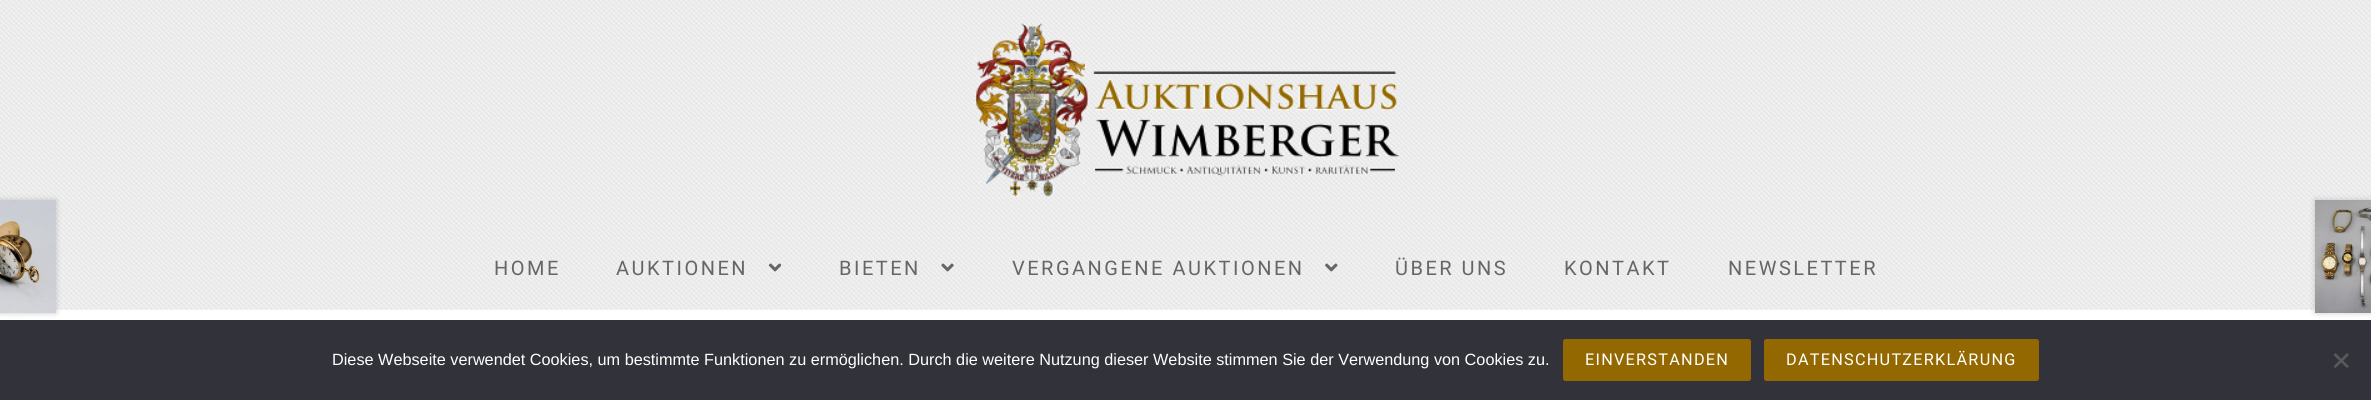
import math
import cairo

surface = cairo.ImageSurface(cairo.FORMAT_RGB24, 2371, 400)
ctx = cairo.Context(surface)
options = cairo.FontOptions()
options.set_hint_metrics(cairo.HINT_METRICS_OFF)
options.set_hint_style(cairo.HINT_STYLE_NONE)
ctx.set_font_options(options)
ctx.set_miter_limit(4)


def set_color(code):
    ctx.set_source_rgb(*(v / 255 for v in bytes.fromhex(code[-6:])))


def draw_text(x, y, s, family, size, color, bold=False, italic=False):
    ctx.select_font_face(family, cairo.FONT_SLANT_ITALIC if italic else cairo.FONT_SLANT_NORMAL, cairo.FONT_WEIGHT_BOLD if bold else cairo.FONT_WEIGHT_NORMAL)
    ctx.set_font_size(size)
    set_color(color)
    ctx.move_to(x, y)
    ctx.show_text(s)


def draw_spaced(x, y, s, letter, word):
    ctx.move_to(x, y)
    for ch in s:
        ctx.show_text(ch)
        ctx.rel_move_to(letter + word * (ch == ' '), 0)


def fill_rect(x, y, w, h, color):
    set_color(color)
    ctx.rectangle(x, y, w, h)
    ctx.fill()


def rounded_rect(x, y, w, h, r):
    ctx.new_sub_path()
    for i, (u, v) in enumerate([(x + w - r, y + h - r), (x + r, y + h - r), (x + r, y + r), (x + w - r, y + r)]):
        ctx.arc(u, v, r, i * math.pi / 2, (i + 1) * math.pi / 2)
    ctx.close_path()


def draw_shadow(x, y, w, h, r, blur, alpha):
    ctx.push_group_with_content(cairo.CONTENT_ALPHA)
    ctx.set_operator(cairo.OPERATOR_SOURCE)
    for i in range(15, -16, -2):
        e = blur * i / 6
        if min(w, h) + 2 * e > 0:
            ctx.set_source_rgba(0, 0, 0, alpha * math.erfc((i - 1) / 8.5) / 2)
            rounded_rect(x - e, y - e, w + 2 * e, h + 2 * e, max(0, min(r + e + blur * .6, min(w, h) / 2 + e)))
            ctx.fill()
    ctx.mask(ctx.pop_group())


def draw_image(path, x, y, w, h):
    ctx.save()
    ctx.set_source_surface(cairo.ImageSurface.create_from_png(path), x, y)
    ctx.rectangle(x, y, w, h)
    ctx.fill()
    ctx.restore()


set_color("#ffffff")
ctx.paint()
draw_image("assets/img3.png", 0, 0, 2371, 309)
fill_rect(56, 309, 2259, 1, "#f0f0f0")
set_color("#000000")
draw_shadow(-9, 200, 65, 113, 0, 3, 0.2)
draw_image("assets/img1.png", 0, 200, 56, 113)
draw_shadow(2315, 200, 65, 113, 0, 3, 0.2)
draw_image("assets/img2.png", 2315, 200, 56, 113)
draw_image("assets/img4.png", 974, 23, 425, 174)
ctx.select_font_face("Roboto")
ctx.set_font_size(20)
set_color("#666666")
draw_spaced(494, 275, "HOME", 2.5, 0)
draw_spaced(616, 275, "AUKTIONEN", 2.5, 0)
draw_image("assets/img5.png", 768, 263, 14, 9)
draw_spaced(839, 275, "BIETEN", 2.5, 0)
draw_image("assets/img6.png", 941, 263, 13, 9)
draw_spaced(1012, 275, "VERGANGENE AUKTIONEN", 2.5, 0)
draw_image("assets/img7.png", 1325, 263, 13, 9)
draw_spaced(1395, 275, "ÜBER UNS", 2.5, 0)
draw_spaced(1564, 275, "KONTAKT", 2.5, 0)
draw_spaced(1728, 275, "NEWSLETTER", 2.5, 0)
fill_rect(0, 320, 2371, 80, "#32323a")
draw_text(332, 365, "Diese Webseite verwendet Cookies, um bestimmte Funktionen zu ermöglichen. Durch die weitere Nutzung dieser Website stimmen Sie der Verwendung von Cookies zu.", "Liberation Sans", 16.25, "#ffffff")
set_color("#936800")
rounded_rect(1563, 339, 188, 42, 2.5)
ctx.fill()
ctx.select_font_face("Roboto")
set_color("#ffffff")
draw_spaced(1585, 365, "EINVERSTANDEN", 1.25, 0)
set_color("#936800")
rounded_rect(1764, 339, 275, 42, 2.5)
ctx.fill()
set_color("#ffffff")
draw_spaced(1786, 365, "DATENSCHUTZERKLÄRUNG", 1.25, 0)
set_color("#59595d")
ctx.new_path()
ctx.move_to(2347, 353)
ctx.line_to(2349, 355)
ctx.line_to(2335.5, 368)
ctx.line_to(2333.5, 366.5)
ctx.close_path()
ctx.fill()
ctx.new_path()
ctx.move_to(2333.5, 355)
ctx.line_to(2335.5, 353)
ctx.line_to(2349, 366.5)
ctx.line_to(2347, 368)
ctx.close_path()
ctx.fill()
surface.write_to_png("output.png")
